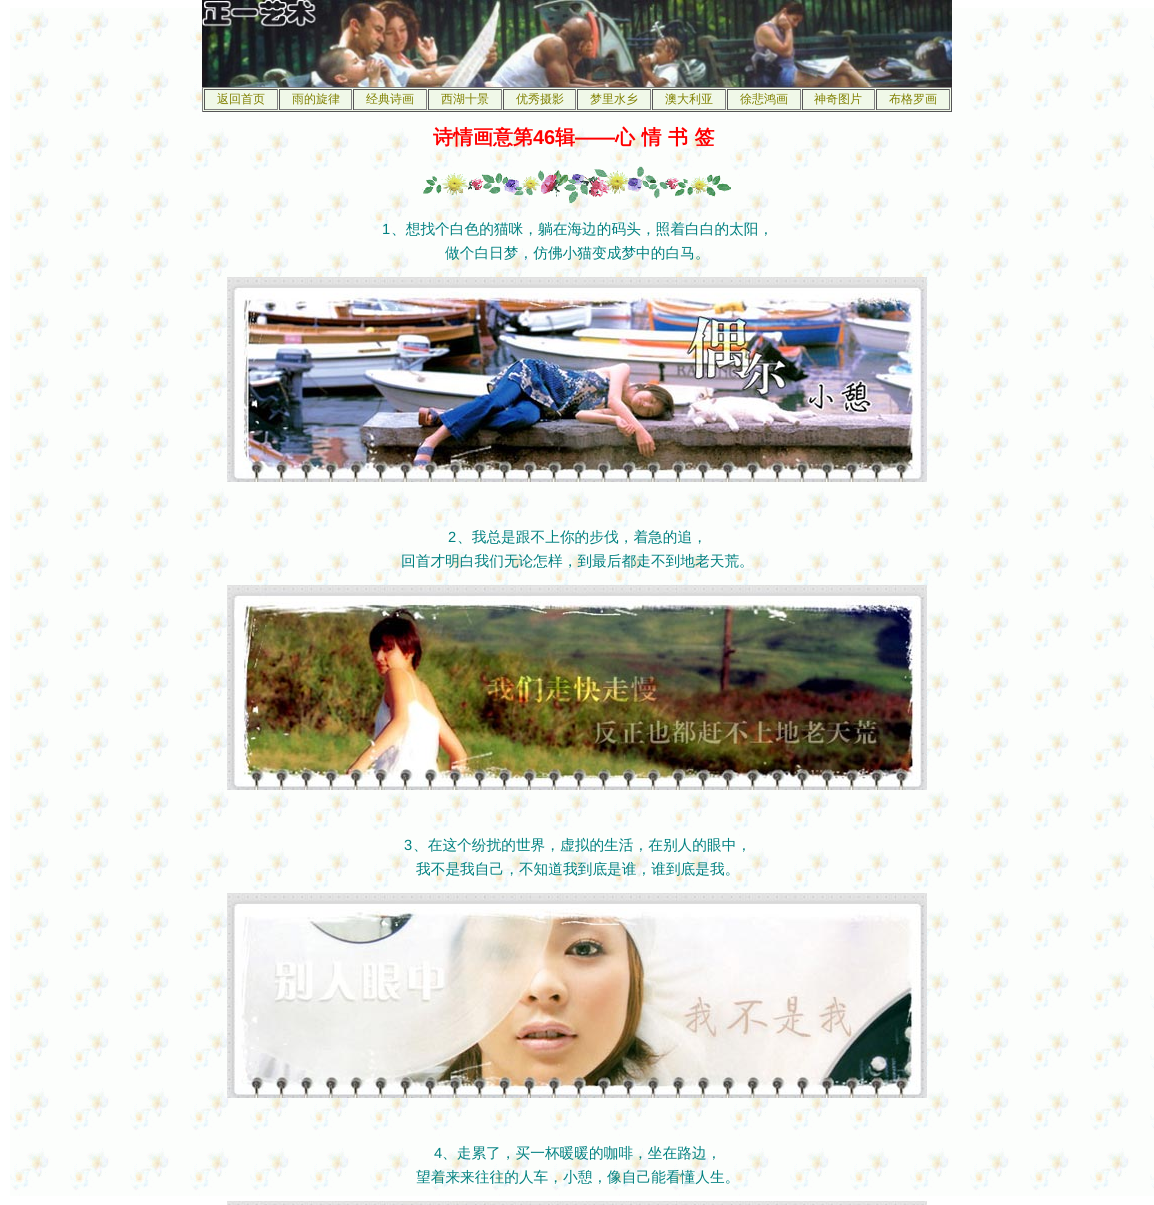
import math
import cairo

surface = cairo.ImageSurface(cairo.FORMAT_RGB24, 1154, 1205)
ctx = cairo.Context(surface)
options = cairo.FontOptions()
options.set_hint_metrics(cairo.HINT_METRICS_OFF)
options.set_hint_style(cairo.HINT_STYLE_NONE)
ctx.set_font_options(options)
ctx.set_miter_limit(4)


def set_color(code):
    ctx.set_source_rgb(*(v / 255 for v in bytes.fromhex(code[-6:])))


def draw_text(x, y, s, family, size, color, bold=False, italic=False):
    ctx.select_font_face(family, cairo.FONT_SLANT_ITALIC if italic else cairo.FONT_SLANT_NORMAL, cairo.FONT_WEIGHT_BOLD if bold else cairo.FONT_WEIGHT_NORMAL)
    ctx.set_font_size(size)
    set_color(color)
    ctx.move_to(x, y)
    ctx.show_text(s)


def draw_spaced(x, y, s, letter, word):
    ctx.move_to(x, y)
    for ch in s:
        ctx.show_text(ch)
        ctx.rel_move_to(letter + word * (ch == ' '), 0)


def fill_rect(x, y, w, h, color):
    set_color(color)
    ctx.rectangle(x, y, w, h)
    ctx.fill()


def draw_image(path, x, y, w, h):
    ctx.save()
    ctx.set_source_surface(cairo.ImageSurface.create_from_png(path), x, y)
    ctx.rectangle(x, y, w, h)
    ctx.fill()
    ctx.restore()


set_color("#ffffff")
ctx.paint()
draw_image("assets/img1.png", 10, 8, 1144, 1188)
draw_image("assets/img2.png", 202, 0, 750, 87)
fill_rect(203, 88, 748, 23, "#f0f8e8")
fill_rect(202, 87, 750, 1, "#808080")
fill_rect(951, 87, 1, 25, "#555555")
fill_rect(202, 111, 750, 1, "#555555")
fill_rect(202, 87, 1, 25, "#808080")
fill_rect(204, 89, 74, 1, "#555555")
fill_rect(277, 89, 1, 21, "#808080")
fill_rect(204, 109, 74, 1, "#808080")
fill_rect(204, 89, 1, 21, "#555555")
draw_text(217, 103, "返回首页", "WenQuanYi Zen Hei Medium", 12, "#808000")
fill_rect(279, 89, 73, 1, "#555555")
fill_rect(351, 89, 1, 21, "#808080")
fill_rect(279, 109, 73, 1, "#808080")
fill_rect(279, 89, 1, 21, "#555555")
draw_text(292, 103, "雨的旋律", "WenQuanYi Zen Hei Medium", 12, "#808000")
fill_rect(353, 89, 74, 1, "#555555")
fill_rect(426, 89, 1, 21, "#808080")
fill_rect(353, 109, 74, 1, "#808080")
fill_rect(353, 89, 1, 21, "#555555")
draw_text(366, 103, "经典诗画", "WenQuanYi Zen Hei Medium", 12, "#808000")
fill_rect(428, 89, 74, 1, "#555555")
fill_rect(501, 89, 1, 21, "#808080")
fill_rect(428, 109, 74, 1, "#808080")
fill_rect(428, 89, 1, 21, "#555555")
draw_text(441, 103, "西湖十景", "WenQuanYi Zen Hei Medium", 12, "#808000")
fill_rect(503, 89, 73, 1, "#555555")
fill_rect(575, 89, 1, 21, "#808080")
fill_rect(503, 109, 73, 1, "#808080")
fill_rect(503, 89, 1, 21, "#555555")
draw_text(516, 103, "优秀摄影", "WenQuanYi Zen Hei Medium", 12, "#808000")
fill_rect(577, 89, 74, 1, "#555555")
fill_rect(650, 89, 1, 21, "#808080")
fill_rect(577, 109, 74, 1, "#808080")
fill_rect(577, 89, 1, 21, "#555555")
draw_text(590, 103, "梦里水乡", "WenQuanYi Zen Hei Medium", 12, "#808000")
fill_rect(652, 89, 74, 1, "#555555")
fill_rect(725, 89, 1, 21, "#808080")
fill_rect(652, 109, 74, 1, "#808080")
fill_rect(652, 89, 1, 21, "#555555")
draw_text(665, 103, "澳大利亚", "WenQuanYi Zen Hei Medium", 12, "#808000")
fill_rect(727, 89, 74, 1, "#555555")
fill_rect(800, 89, 1, 21, "#808080")
fill_rect(727, 109, 74, 1, "#808080")
fill_rect(727, 89, 1, 21, "#555555")
draw_text(740, 103, "徐悲鸿画", "WenQuanYi Zen Hei Medium", 12, "#808000")
fill_rect(802, 89, 73, 1, "#555555")
fill_rect(874, 89, 1, 21, "#808080")
fill_rect(802, 109, 73, 1, "#808080")
fill_rect(802, 89, 1, 21, "#555555")
draw_text(814, 103, "神奇图片", "WenQuanYi Zen Hei Medium", 12, "#808000")
fill_rect(876, 89, 74, 1, "#555555")
fill_rect(949, 89, 1, 21, "#808080")
fill_rect(876, 109, 74, 1, "#808080")
fill_rect(876, 89, 1, 21, "#555555")
draw_text(889, 103, "布格罗画", "WenQuanYi Zen Hei Medium", 12, "#808000")
draw_text(433, 144, "诗情画意第", "WenQuanYi Zen Hei", 20, "#ff0000", bold=True)
draw_text(533, 144, "46", "Liberation Sans", 20, "#ff0000", bold=True)
draw_text(555, 144, "辑", "WenQuanYi Zen Hei", 20, "#ff0000", bold=True)
draw_text(575, 144, "——", "Liberation Sans", 20, "#ff0000", bold=True)
ctx.select_font_face("WenQuanYi Zen Hei", cairo.FONT_SLANT_NORMAL, cairo.FONT_WEIGHT_BOLD)
draw_spaced(615, 144, "心情书签", 6.5, 0)
draw_image("assets/img3.png", 422, 166, 309, 38)
draw_text(382, 234, "1", "Liberation Sans", 14.7, "#008080")
draw_text(391, 234, "、想找个白色的猫咪，躺在海边的码头，照着白白的太阳，", "WenQuanYi Zen Hei Medium", 14.7, "#008080")
draw_text(445, 258, "做个白日梦，仿佛小猫变成梦中的白马。", "WenQuanYi Zen Hei Medium", 14.7, "#008080")
draw_image("assets/img4.png", 227, 277, 700, 205)
draw_text(448, 542, "2", "Liberation Sans", 14.7, "#008080")
draw_text(457, 542, "、我总是跟不上你的步伐，着急的追，", "WenQuanYi Zen Hei Medium", 14.7, "#008080")
draw_text(401, 566, "回首才明白我们无论怎样，到最后都走不到地老天荒。", "WenQuanYi Zen Hei Medium", 14.7, "#008080")
draw_image("assets/img5.png", 227, 585, 700, 205)
draw_text(404, 850, "3", "Liberation Sans", 14.7, "#008080")
draw_text(413, 850, "、在这个纷扰的世界，虚拟的生活，在别人的眼中，", "WenQuanYi Zen Hei Medium", 14.7, "#008080")
draw_text(416, 874, "我不是我自己，不知道我到底是谁，谁到底是我。", "WenQuanYi Zen Hei Medium", 14.7, "#008080")
draw_image("assets/img6.png", 227, 893, 700, 205)
draw_text(434, 1158, "4", "Liberation Sans", 14.7, "#008080")
draw_text(442, 1158, "、走累了，买一杯暖暖的咖啡，坐在路边，", "WenQuanYi Zen Hei Medium", 14.7, "#008080")
draw_text(416, 1182, "望着来来往往的人车，小憩，像自己能看懂人生。", "WenQuanYi Zen Hei Medium", 14.7, "#008080")
draw_image("assets/img7.png", 227, 1201, 700, 4)
surface.write_to_png("output.png")
